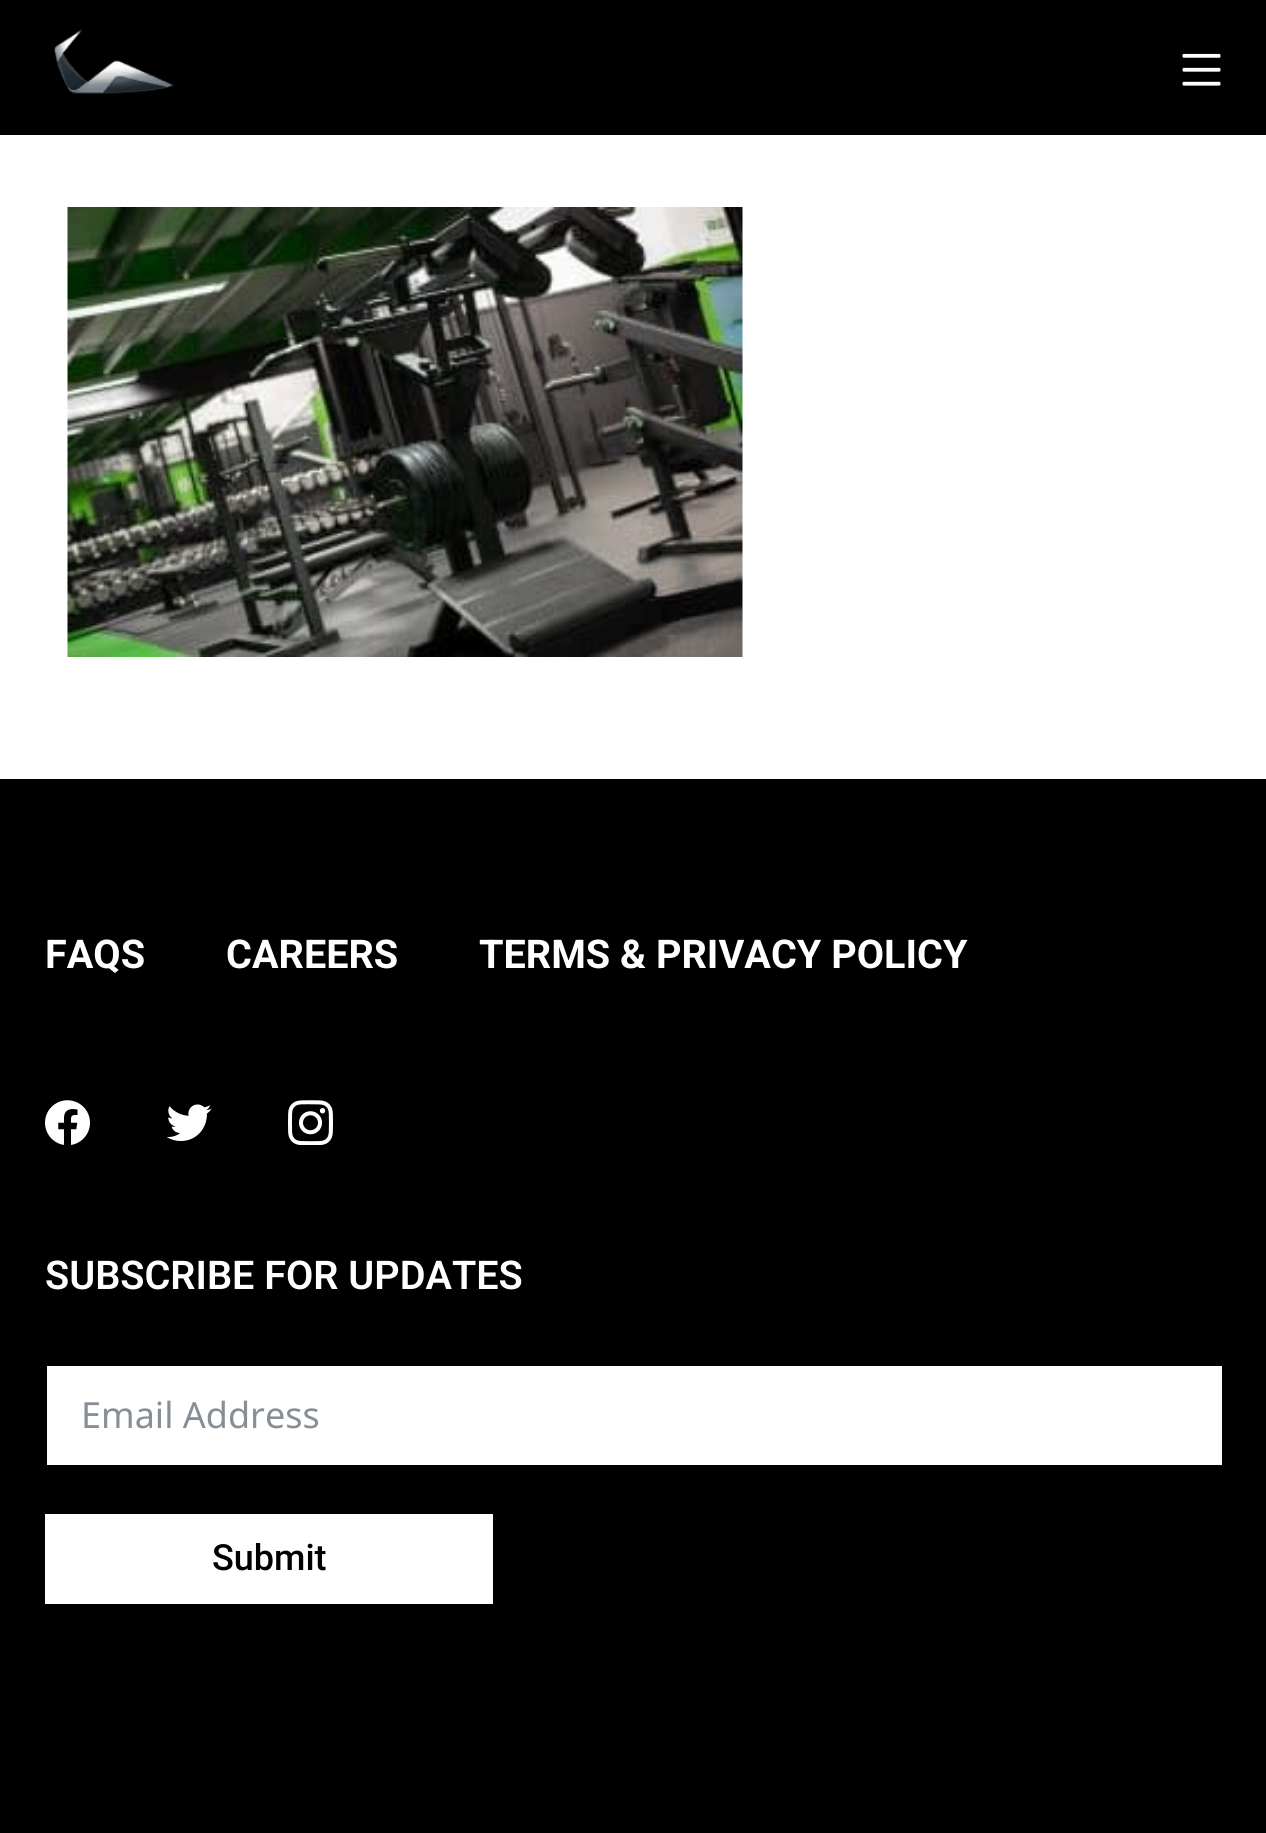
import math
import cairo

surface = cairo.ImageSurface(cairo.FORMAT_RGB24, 1266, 1833)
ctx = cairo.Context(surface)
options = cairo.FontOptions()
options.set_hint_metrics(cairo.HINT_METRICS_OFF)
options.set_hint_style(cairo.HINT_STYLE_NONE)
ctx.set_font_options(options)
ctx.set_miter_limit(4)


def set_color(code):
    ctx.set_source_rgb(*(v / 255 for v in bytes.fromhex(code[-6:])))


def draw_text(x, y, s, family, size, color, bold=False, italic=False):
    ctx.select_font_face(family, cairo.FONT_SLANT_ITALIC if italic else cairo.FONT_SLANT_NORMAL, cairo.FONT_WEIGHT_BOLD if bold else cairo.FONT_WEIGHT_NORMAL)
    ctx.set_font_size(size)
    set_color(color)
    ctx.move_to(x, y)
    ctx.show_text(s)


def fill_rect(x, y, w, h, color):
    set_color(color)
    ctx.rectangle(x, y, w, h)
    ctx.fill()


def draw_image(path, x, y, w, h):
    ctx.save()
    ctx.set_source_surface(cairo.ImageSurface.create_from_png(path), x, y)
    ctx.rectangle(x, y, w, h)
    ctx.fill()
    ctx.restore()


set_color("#ffffff")
ctx.paint()
fill_rect(0, 0, 1266, 135, "#000000")
draw_image("assets/img1.png", 54, 29, 120, 65)
draw_image("assets/img2.png", 1182, 53, 39, 33)
draw_image("assets/img3.png", 67, 207, 676, 450)
fill_rect(0, 779, 1266, 1054, "#000000")
draw_text(45, 968, "FAQS", "Roboto", 39.6, "#ffffff", bold=True)
draw_text(226, 968, "CAREERS", "Roboto", 39.6, "#ffffff", bold=True)
draw_text(479, 968, "TERMS & PRIVACY POLICY", "Roboto", 39.6, "#ffffff", bold=True)
draw_image("assets/img4.png", 45, 1100, 45, 45)
draw_image("assets/img5.png", 167, 1104, 45, 37)
draw_image("assets/img6.png", 288, 1100, 45, 45)
draw_text(45, 1289, "SUBSCRIBE FOR UPDATES", "Roboto SemiBold", 39.6, "#ffffff")
fill_rect(47, 1366, 1175, 99, "#ffffff")
draw_text(81, 1428, "Email Address", "Noto Sans", 36, "#868e96")
fill_rect(45, 1514, 448, 90, "#ffffff")
draw_text(212, 1570, "Submit", "Roboto Medium", 36, "#000000")
surface.write_to_png("output.png")
